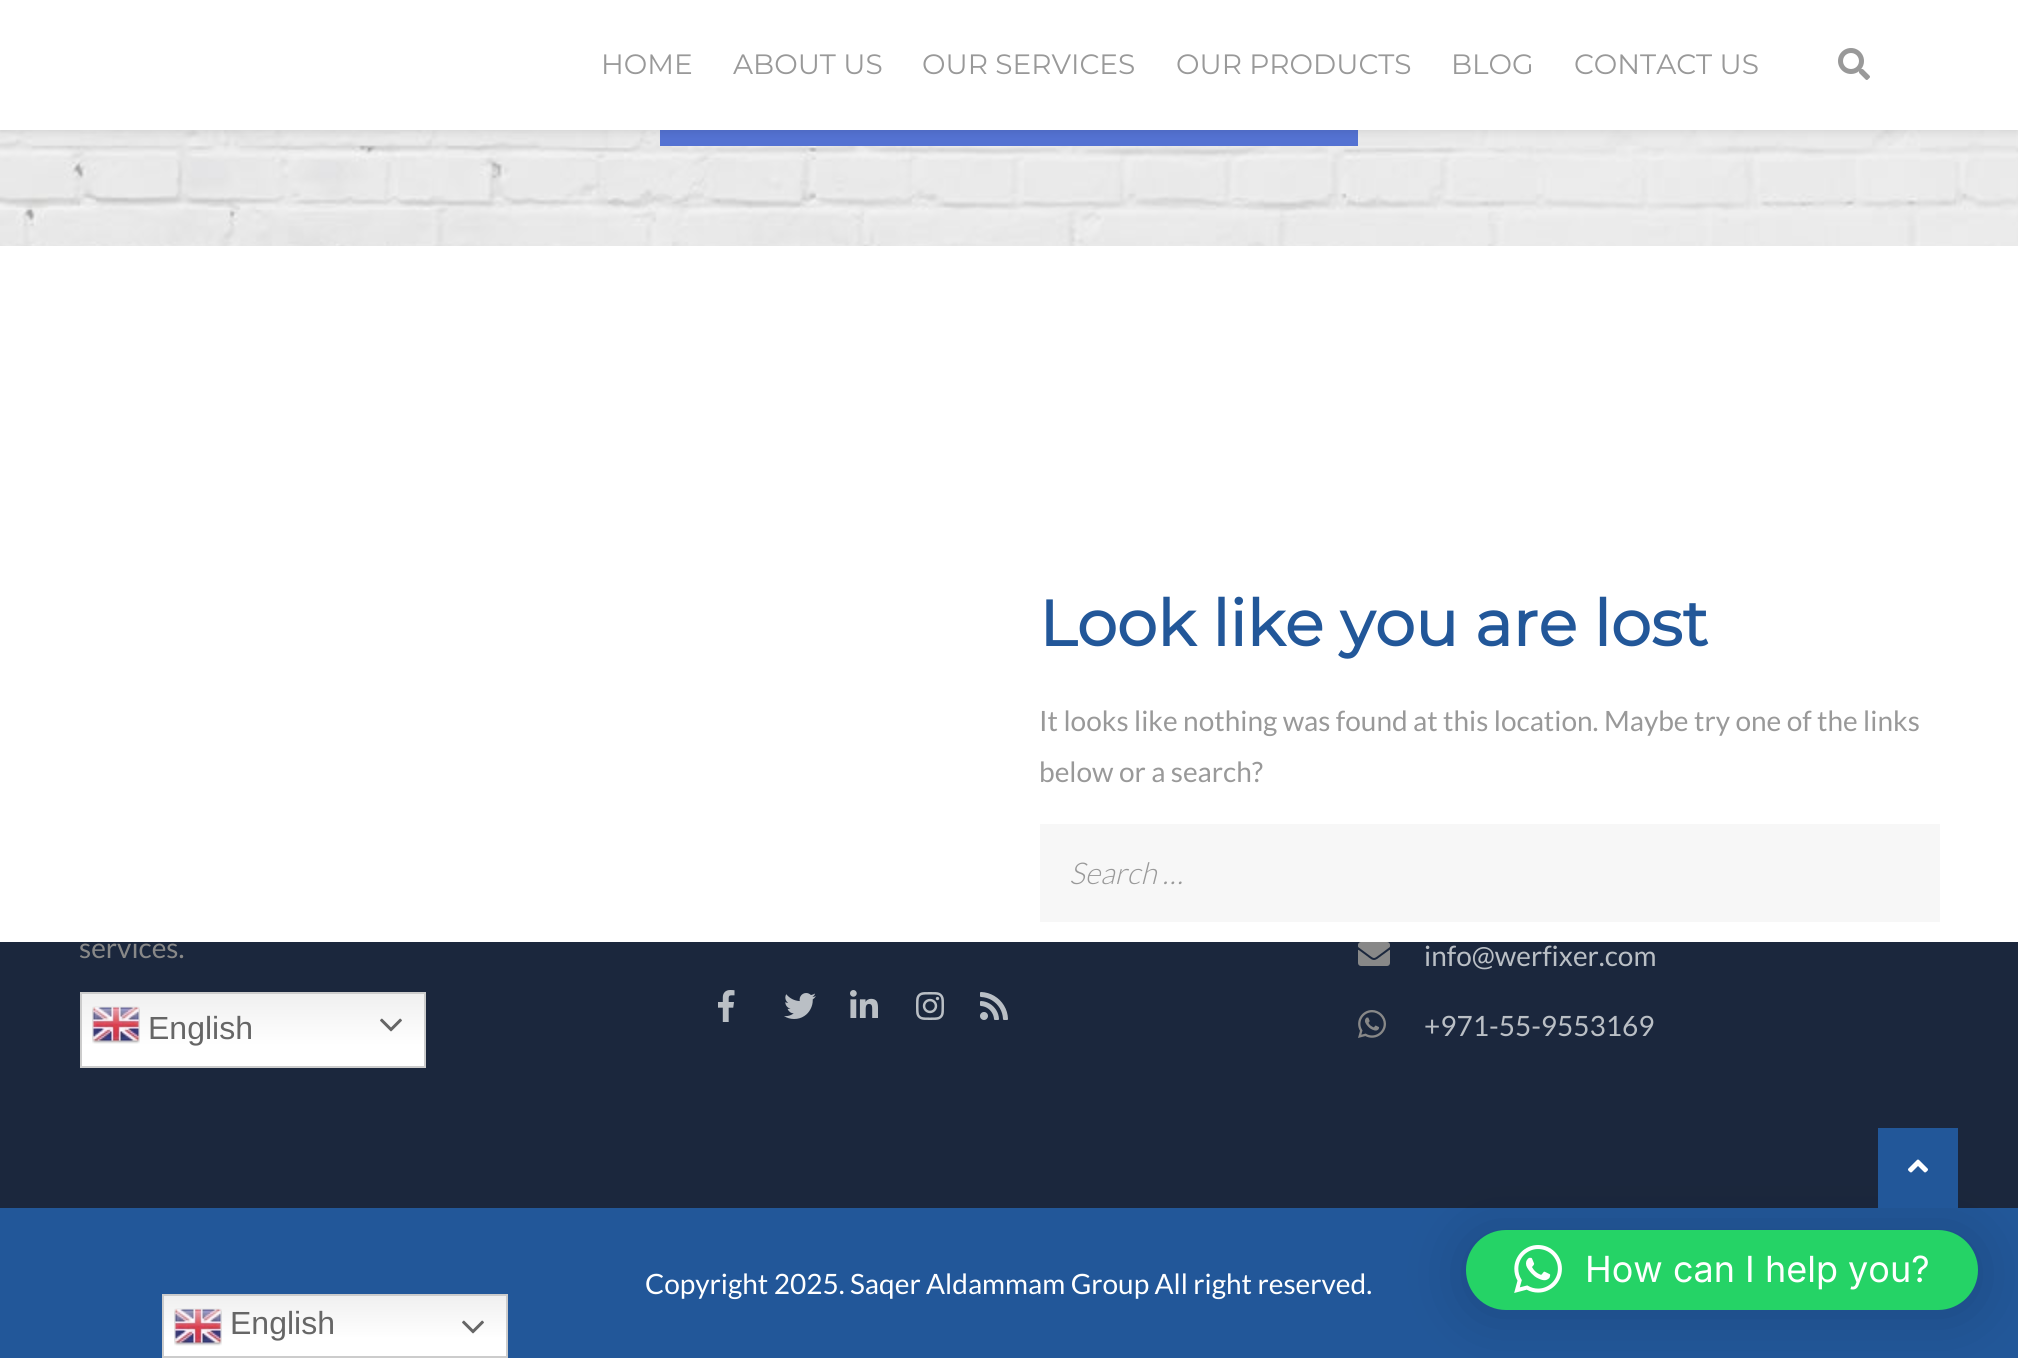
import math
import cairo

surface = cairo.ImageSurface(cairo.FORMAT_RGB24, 2018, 1358)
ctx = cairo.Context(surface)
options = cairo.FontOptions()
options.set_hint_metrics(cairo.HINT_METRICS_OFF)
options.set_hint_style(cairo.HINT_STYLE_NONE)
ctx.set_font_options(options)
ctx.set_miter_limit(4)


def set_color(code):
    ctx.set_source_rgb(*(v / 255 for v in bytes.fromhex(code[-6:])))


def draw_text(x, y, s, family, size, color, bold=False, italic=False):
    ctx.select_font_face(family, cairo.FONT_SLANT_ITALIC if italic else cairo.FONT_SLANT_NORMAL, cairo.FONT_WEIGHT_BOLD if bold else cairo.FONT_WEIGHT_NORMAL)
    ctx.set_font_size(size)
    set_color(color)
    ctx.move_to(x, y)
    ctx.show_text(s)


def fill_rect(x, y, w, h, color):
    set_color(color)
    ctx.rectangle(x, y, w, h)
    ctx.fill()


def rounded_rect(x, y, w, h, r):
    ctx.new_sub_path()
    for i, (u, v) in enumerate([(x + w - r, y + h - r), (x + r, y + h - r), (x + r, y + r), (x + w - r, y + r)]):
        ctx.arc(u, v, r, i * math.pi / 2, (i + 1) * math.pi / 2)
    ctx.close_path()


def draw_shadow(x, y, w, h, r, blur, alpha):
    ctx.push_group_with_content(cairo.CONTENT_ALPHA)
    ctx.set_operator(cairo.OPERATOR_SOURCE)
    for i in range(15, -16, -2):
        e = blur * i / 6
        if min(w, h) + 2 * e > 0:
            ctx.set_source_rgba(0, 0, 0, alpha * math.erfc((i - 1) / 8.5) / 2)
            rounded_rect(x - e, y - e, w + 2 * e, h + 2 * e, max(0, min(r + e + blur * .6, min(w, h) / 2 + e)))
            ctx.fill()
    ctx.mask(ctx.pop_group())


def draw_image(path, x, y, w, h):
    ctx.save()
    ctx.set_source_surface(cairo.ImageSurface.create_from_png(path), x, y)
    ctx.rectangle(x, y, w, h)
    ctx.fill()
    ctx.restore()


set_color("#1b273d")
ctx.paint()
draw_image("assets/img2.png", 0, 130, 2018, 116)
fill_rect(660, 130, 698, 16, "#5472d2")
set_color("#000000")
draw_shadow(0, 2, 2018, 130, 0, 4, 0.1)
fill_rect(0, 0, 2018, 130, "#ffffff")
draw_text(601, 74, "HOME", "Montserrat", 28, "#999999")
draw_text(733, 74, "ABOUT US", "Montserrat", 28, "#999999")
draw_text(922, 74, "OUR SERVICES", "Montserrat", 28, "#999999")
draw_text(1176, 74, "OUR PRODUCTS", "Montserrat", 28, "#999999")
draw_text(1451, 74, "BLOG", "Montserrat", 28, "#999999")
draw_text(1574, 74, "CONTACT US", "Montserrat", 28, "#999999")
draw_image("assets/img1.png", 1838, 48, 32, 32)
draw_text(79, 958, "services.", "Lato", 28, "#888888")
fill_rect(0, 246, 2018, 696, "#ffffff")
draw_text(1039, 646, "Look like you are lost", "Montserrat", 64, "#225799", bold=True)
draw_text(1039, 731, "It looks like nothing was found at this location. Maybe try one of the links", "Lato", 28, "#999999")
draw_text(1039, 782, "below or a search?", "Lato", 28, "#999999")
fill_rect(1040, 824, 900, 98, "#f7f7f7")
draw_text(1069, 884, "Search …", "Lato Light", 30, "#999999", italic=True)
gradient = cairo.LinearGradient(253, 992, 253, 1068)
gradient.add_color_stop_rgba(0, 0.937, 0.937, 0.937, 1)
gradient.add_color_stop_rgba(0.7, 1, 1, 1, 1)
ctx.set_source(gradient)
ctx.rectangle(82, 994, 342, 72)
ctx.fill()
ctx.rectangle(81, 993, 344, 74)
set_color("#cccccc")
ctx.stroke()
draw_image("assets/img3.png", 92, 1006, 48, 38)
draw_text(148, 1039, "English", "Liberation Sans", 32, "#666666")
draw_image("assets/img4.png", 380, 1018, 22, 14)
draw_image("assets/img5.png", 718, 990, 17, 32)
draw_image("assets/img6.png", 784, 993, 32, 26)
draw_image("assets/img7.png", 850, 990, 28, 28)
draw_image("assets/img8.png", 916, 992, 28, 28)
draw_image("assets/img9.png", 980, 992, 28, 28)
draw_image("assets/img10.png", 1358, 942, 32, 24)
draw_text(1424, 966, "info@werfixer.com", "Lato", 28, "#babfc5")
draw_image("assets/img11.png", 1358, 1010, 28, 28)
draw_text(1424, 1036, "+971-55-9553169", "Lato", 28, "#babfc5")
fill_rect(0, 1208, 2018, 150, "#225799")
draw_text(645, 1294, "Copyright 2025. Saqer Aldammam Group All right reserved.", "Lato", 28, "#ffffff")
set_color("#000000")
draw_shadow(1466, 1234, 512, 80, 40, 32, 0.16)
set_color("#25d366")
rounded_rect(1466, 1230, 512, 80, 40)
ctx.fill()
draw_image("assets/img12.png", 1514, 1245, 48, 48)
draw_text(1585, 1282, "How can I help you?", "Inter", 36, "#ffffff")
gradient = cairo.LinearGradient(335, 1294, 335, 1358)
gradient.add_color_stop_rgba(0, 0.937, 0.937, 0.937, 1)
gradient.add_color_stop_rgba(0.7, 1, 1, 1, 1)
ctx.set_source(gradient)
ctx.rectangle(164, 1296, 342, 60)
ctx.fill()
ctx.rectangle(163, 1295, 344, 62)
set_color("#cccccc")
ctx.stroke()
draw_image("assets/img13.png", 174, 1308, 48, 38)
draw_text(230, 1334, "English", "Liberation Sans", 32, "#666666")
draw_image("assets/img14.png", 462, 1320, 22, 14)
fill_rect(1878, 1128, 80, 80, "#225799")
draw_image("assets/img15.png", 1908, 1159, 20, 14)
surface.write_to_png("output.png")
